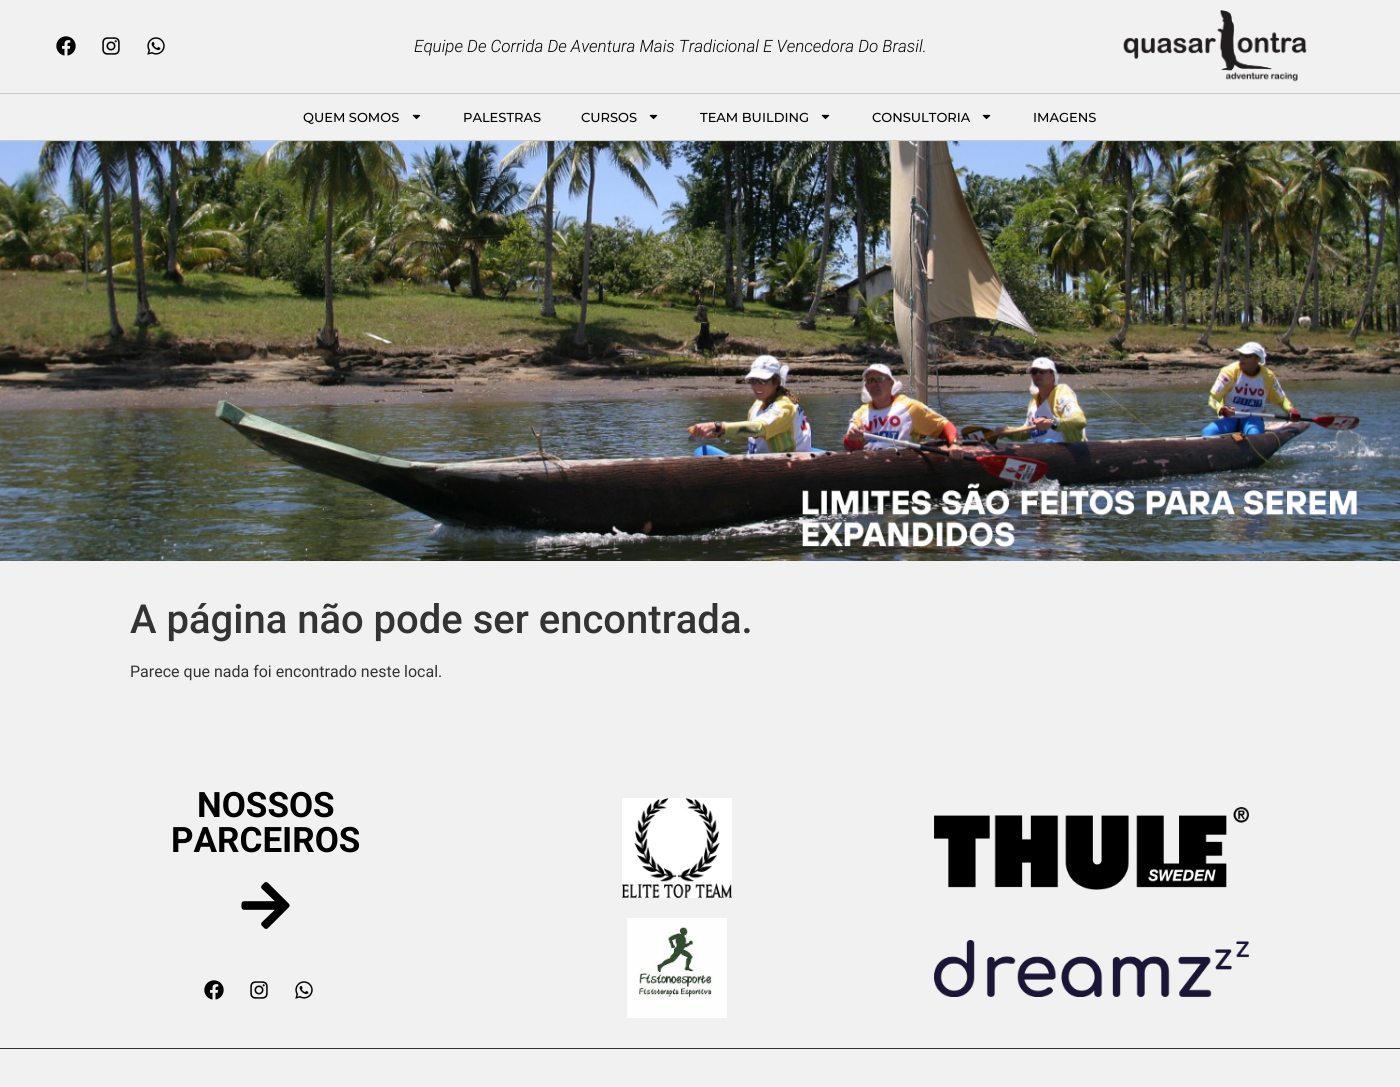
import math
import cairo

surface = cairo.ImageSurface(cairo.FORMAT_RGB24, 1400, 1087)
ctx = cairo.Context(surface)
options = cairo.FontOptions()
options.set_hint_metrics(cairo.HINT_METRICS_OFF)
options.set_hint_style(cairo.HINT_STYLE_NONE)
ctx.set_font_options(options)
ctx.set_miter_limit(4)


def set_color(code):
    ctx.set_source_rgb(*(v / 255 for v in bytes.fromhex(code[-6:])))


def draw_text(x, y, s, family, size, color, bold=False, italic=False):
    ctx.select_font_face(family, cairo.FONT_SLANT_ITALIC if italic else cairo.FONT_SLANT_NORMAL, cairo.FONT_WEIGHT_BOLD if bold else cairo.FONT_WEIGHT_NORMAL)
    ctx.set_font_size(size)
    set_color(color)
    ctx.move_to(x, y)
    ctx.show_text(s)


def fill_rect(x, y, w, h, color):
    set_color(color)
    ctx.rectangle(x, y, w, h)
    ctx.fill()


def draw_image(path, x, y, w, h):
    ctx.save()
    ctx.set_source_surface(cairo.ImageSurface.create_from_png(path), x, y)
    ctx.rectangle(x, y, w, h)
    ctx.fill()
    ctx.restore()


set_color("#f1f1f1")
ctx.paint()
fill_rect(0, 93, 1400, 1, "#c9c9c9")
draw_image("assets/img1.png", 56, 36, 20, 20)
draw_image("assets/img2.png", 102, 37, 18, 18)
draw_image("assets/img3.png", 147, 37, 18, 18)
draw_text(414, 52, "Equipe De Corrida De Aventura Mais Tradicional E Vencedora Do Brasil.", "Roboto Light", 17, "#000000", italic=True)
draw_image("assets/img4.png", 1123, 10, 184, 72)
fill_rect(0, 140, 1400, 1, "#c9c9c9")
draw_text(303, 122, "QUEM SOMOS", "Montserrat Medium", 13, "#000000")
draw_image("assets/img5.png", 412, 114, 9, 6)
draw_text(463, 122, "PALESTRAS", "Montserrat Medium", 13, "#000000")
draw_text(581, 122, "CURSOS", "Montserrat Medium", 13, "#000000")
draw_image("assets/img5.png", 649, 114, 9, 6)
draw_text(700, 122, "TEAM BUILDING", "Montserrat Medium", 13, "#000000")
draw_image("assets/img5.png", 821, 114, 9, 6)
draw_text(872, 122, "CONSULTORIA", "Montserrat Medium", 13, "#000000")
draw_image("assets/img5.png", 982, 114, 9, 6)
draw_text(1033, 122, "IMAGENS", "Montserrat Medium", 13, "#000000")
draw_image("assets/img6.png", 0, 141, 1400, 420)
draw_text(130, 633, "A página não pode ser encontrada.", "Roboto Medium", 40, "#333333")
draw_text(130, 677, "Parece que nada foi encontrado neste local.", "Roboto", 16, "#333333")
fill_rect(0, 1048, 1400, 1, "#333333")
draw_text(197, 817, "NOSSOS", "Roboto", 35, "#000000", bold=True)
draw_text(171, 852, "PARCEIROS", "Roboto", 35, "#000000", bold=True)
draw_image("assets/img7.png", 241, 882, 49, 47)
draw_image("assets/img1.png", 204, 980, 20, 20)
draw_image("assets/img2.png", 250, 981, 18, 18)
draw_image("assets/img3.png", 295, 981, 18, 18)
draw_image("assets/img8.png", 622, 798, 110, 100)
draw_image("assets/img9.png", 934, 807, 315, 83)
draw_image("assets/img10.png", 627, 918, 100, 100)
draw_image("assets/img11.png", 934, 940, 315, 57)
surface.write_to_png("output.png")
